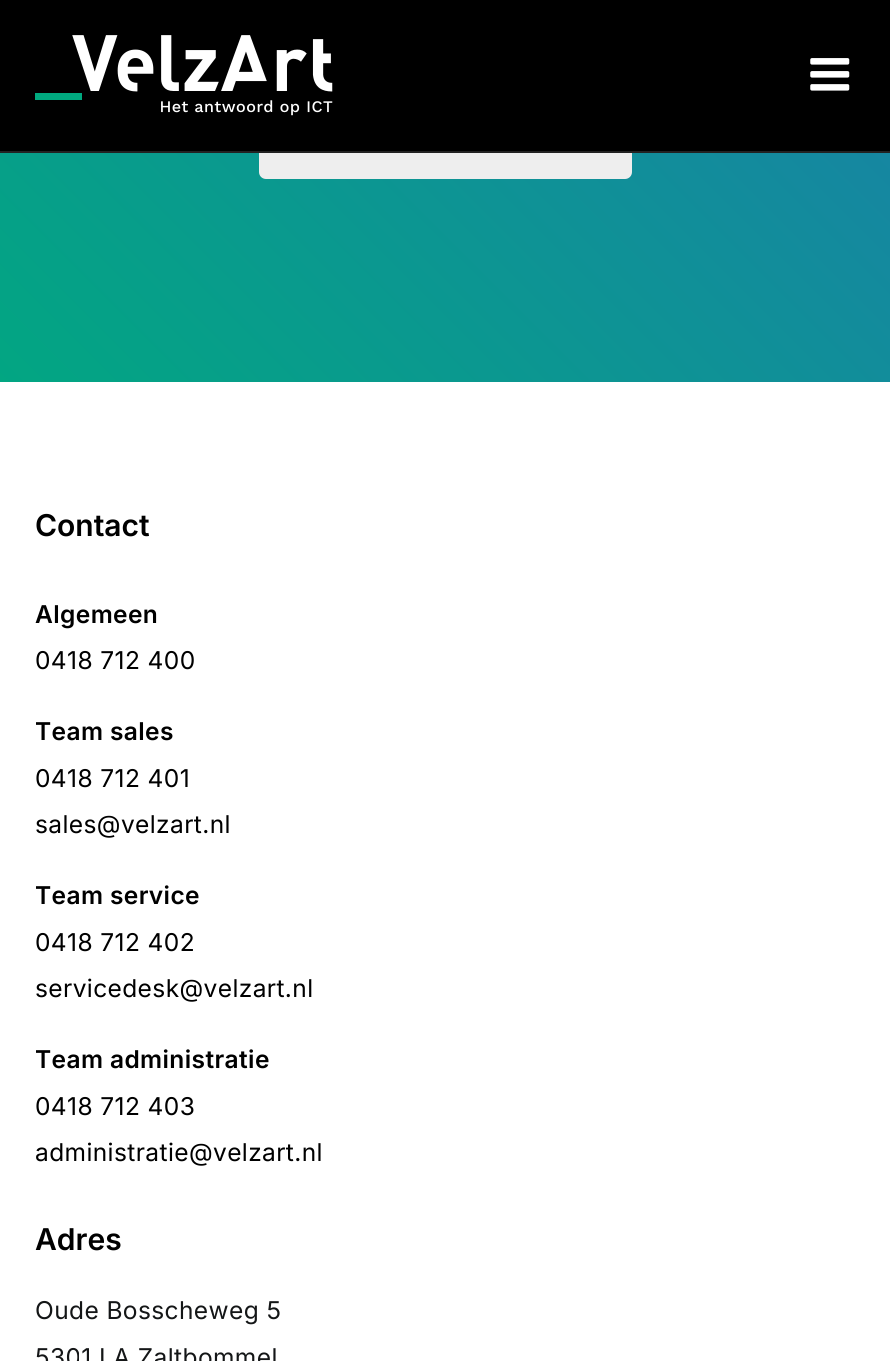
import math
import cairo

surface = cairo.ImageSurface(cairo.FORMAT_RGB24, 890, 1361)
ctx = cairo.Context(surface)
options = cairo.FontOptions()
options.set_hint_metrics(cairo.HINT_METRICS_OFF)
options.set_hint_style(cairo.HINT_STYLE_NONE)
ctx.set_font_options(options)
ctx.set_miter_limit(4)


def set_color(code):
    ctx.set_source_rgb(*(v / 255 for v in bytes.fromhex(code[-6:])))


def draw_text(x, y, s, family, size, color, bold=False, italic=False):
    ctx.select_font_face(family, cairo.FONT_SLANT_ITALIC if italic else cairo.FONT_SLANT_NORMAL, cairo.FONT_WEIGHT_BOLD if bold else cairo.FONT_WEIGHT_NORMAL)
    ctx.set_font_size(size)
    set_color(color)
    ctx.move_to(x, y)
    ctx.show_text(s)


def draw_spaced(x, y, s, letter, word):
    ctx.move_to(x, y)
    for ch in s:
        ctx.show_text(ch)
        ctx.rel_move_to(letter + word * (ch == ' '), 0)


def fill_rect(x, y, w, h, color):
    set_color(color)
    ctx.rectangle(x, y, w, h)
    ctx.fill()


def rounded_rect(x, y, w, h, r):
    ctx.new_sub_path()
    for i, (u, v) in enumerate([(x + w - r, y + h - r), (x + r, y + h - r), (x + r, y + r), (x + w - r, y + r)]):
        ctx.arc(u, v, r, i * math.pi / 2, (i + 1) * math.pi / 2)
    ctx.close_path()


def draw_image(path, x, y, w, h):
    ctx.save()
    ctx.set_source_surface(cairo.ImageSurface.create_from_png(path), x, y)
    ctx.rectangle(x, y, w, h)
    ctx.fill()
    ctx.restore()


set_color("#ffffff")
ctx.paint()
gradient = cairo.LinearGradient(121, 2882, 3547, -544)
gradient.add_color_stop_rgba(0, 0.188, 0.91, 0.478, 1)
gradient.add_color_stop_rgba(0.33, 0, 0.663, 0.498, 1)
gradient.add_color_stop_rgba(0.67, 0.161, 0.408, 0.749, 1)
gradient.add_color_stop_rgba(1, 0.29, 0.141, 0.859, 1)
ctx.set_source(gradient)
ctx.rectangle(0, 153, 890, 229)
ctx.fill()
set_color("#eeeeee")
rounded_rect(259, 84, 373, 95, 7)
ctx.fill()
fill_rect(0, 0, 890, 151, "#000000")
fill_rect(0, 151, 890, 2, "#222222")
draw_image("assets/img1.png", 35, 35, 298, 81)
draw_image("assets/img2.png", 810, 58, 40, 33)
draw_text(35, 536, "Contact", "Inter SemiBold", 30, "#000000")
ctx.set_font_size(24.5)
draw_spaced(35, 623, "Algemeen", 0.4, 0)
ctx.select_font_face("Inter")
draw_spaced(35, 669, "0418 712 400", 0.4, 0)
ctx.select_font_face("Inter SemiBold")
draw_spaced(35, 740, "Team sales", 0.4, 0)
ctx.select_font_face("Inter")
draw_spaced(35, 787, "0418 712 401", 0.4, 0)
draw_spaced(35, 833, "sales@velzart.nl", 0.4, 0)
ctx.select_font_face("Inter SemiBold")
draw_spaced(35, 904, "Team service", 0.4, 0)
ctx.select_font_face("Inter")
draw_spaced(35, 951, "0418 712 402", 0.4, 0)
draw_spaced(35, 997, "servicedesk@velzart.nl", 0.4, 0)
ctx.select_font_face("Inter SemiBold")
draw_spaced(35, 1068, "Team administratie", 0.4, 0)
ctx.select_font_face("Inter")
draw_spaced(35, 1115, "0418 712 403", 0.4, 0)
draw_spaced(35, 1161, "administratie@velzart.nl", 0.4, 0)
draw_text(35, 1250, "Adres", "Inter SemiBold", 30, "#000000")
ctx.select_font_face("Inter")
ctx.set_font_size(24.5)
set_color("#141617")
draw_spaced(35, 1319, "Oude Bosscheweg 5", 0.4, 0)
draw_spaced(35, 1366, "5301 LA Zaltbommel", 0.4, 0)
surface.write_to_png("output.png")
